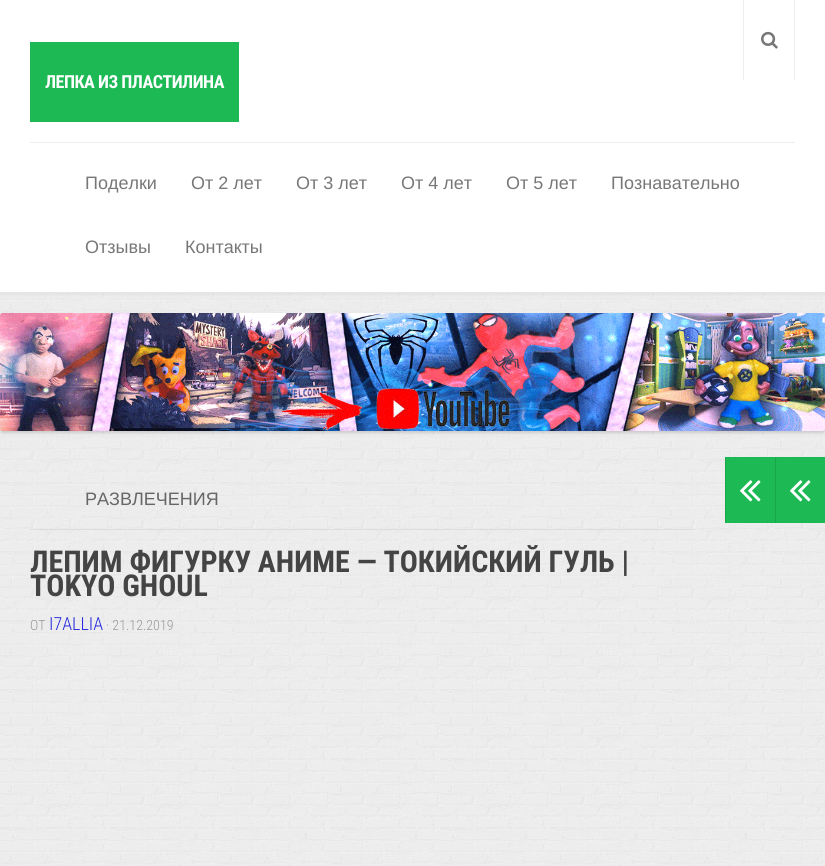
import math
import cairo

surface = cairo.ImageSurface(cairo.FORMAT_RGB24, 825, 866)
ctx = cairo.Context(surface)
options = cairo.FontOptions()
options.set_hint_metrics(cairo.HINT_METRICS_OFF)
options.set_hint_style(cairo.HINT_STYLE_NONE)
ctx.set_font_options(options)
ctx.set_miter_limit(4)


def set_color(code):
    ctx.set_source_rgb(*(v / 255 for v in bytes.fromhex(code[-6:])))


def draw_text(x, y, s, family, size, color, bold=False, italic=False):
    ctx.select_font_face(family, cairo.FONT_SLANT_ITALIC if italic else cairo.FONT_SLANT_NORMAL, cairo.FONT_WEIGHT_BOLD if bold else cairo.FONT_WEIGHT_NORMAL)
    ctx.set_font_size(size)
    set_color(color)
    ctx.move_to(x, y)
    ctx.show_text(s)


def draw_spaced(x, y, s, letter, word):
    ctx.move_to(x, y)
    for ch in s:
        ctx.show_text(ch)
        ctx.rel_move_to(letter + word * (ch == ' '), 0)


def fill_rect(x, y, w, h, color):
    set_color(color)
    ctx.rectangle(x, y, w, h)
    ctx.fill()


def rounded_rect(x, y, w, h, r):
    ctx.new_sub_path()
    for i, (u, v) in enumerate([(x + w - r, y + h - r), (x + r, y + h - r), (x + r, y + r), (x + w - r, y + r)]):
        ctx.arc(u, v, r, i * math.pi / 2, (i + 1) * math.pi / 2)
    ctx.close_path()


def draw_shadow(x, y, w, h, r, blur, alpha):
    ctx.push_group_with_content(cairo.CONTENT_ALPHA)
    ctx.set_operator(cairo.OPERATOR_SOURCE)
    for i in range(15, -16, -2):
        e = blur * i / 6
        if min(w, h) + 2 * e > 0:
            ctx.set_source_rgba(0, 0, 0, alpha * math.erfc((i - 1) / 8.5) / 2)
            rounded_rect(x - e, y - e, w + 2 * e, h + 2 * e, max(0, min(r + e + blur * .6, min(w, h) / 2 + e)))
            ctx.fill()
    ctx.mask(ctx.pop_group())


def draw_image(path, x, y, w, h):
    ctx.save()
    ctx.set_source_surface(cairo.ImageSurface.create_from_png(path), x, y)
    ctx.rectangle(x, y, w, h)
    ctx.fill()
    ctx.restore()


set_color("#ffffff")
ctx.paint()
draw_image("assets/img1.png", 0, 293, 825, 573)
set_color("#000000")
draw_shadow(0, 0, 825, 293, 0, 2.5, 0.1)
fill_rect(0, 0, 825, 292, "#ffffff")
fill_rect(0, 292, 825, 1, "#e6e6e6")
fill_rect(794, 0, 1, 80, "#eeeeee")
fill_rect(743, 0, 1, 80, "#eeeeee")
draw_image("assets/img2.png", 761, 31, 17, 18)
fill_rect(30, 42, 209, 80, "#1db954")
ctx.select_font_face("Roboto Condensed", cairo.FONT_SLANT_NORMAL, cairo.FONT_WEIGHT_BOLD)
ctx.set_font_size(18)
set_color("#ffffff")
draw_spaced(45, 88, "ЛЕПКА ИЗ ПЛАСТИЛИНА", -0.5, 0)
fill_rect(30, 142, 765, 1, "#eeeeee")
draw_text(85, 189, "Поделки", "Liberation Sans", 18, "#777777")
draw_text(191, 189, "От 2 лет", "Liberation Sans", 18, "#777777")
draw_text(296, 189, "От 3 лет", "Liberation Sans", 18, "#777777")
draw_text(401, 189, "От 4 лет", "Liberation Sans", 18, "#777777")
draw_text(506, 189, "От 5 лет", "Liberation Sans", 18, "#777777")
draw_text(611, 189, "Познавательно", "Liberation Sans", 18, "#777777")
draw_text(85, 253, "Отзывы", "Liberation Sans", 18, "#777777")
draw_text(185, 253, "Контакты", "Liberation Sans", 18, "#777777")
set_color("#000000")
draw_shadow(0, 315, 825, 118, 3, 1.5, 0.15)
draw_image("assets/img3.png", 0, 313, 825, 118)
fill_rect(30, 529, 665, 1, "#dddddd")
draw_text(85, 505, "РАЗВЛЕЧЕНИЯ", "Liberation Sans", 18, "#666666")
draw_text(30, 572, "ЛЕПИМ ФИГУРКУ АНИМЕ — ТОКИЙСКИЙ ГУЛЬ |", "Roboto Condensed", 30, "#444444", bold=True)
draw_text(30, 596, "TOKYO GHOUL", "Roboto Condensed", 30, "#444444", bold=True)
draw_text(30, 630, "ОТ", "Roboto Condensed Light", 14, "#999999")
draw_text(49, 630, "I7ALLIA", "Roboto Condensed Light", 18, "#2227dc")
draw_text(106, 630, "· 21.12.2019", "Roboto Condensed Light", 14, "#999999")
fill_rect(726, 457, 49, 66, "#1db954")
fill_rect(725, 457, 1, 66, "#1aa74c")
draw_image("assets/img4.png", 740, 480, 21, 22)
fill_rect(776, 457, 49, 66, "#1db954")
fill_rect(775, 457, 1, 66, "#1aa74c")
draw_image("assets/img4.png", 790, 480, 21, 22)
surface.write_to_png("output.png")
